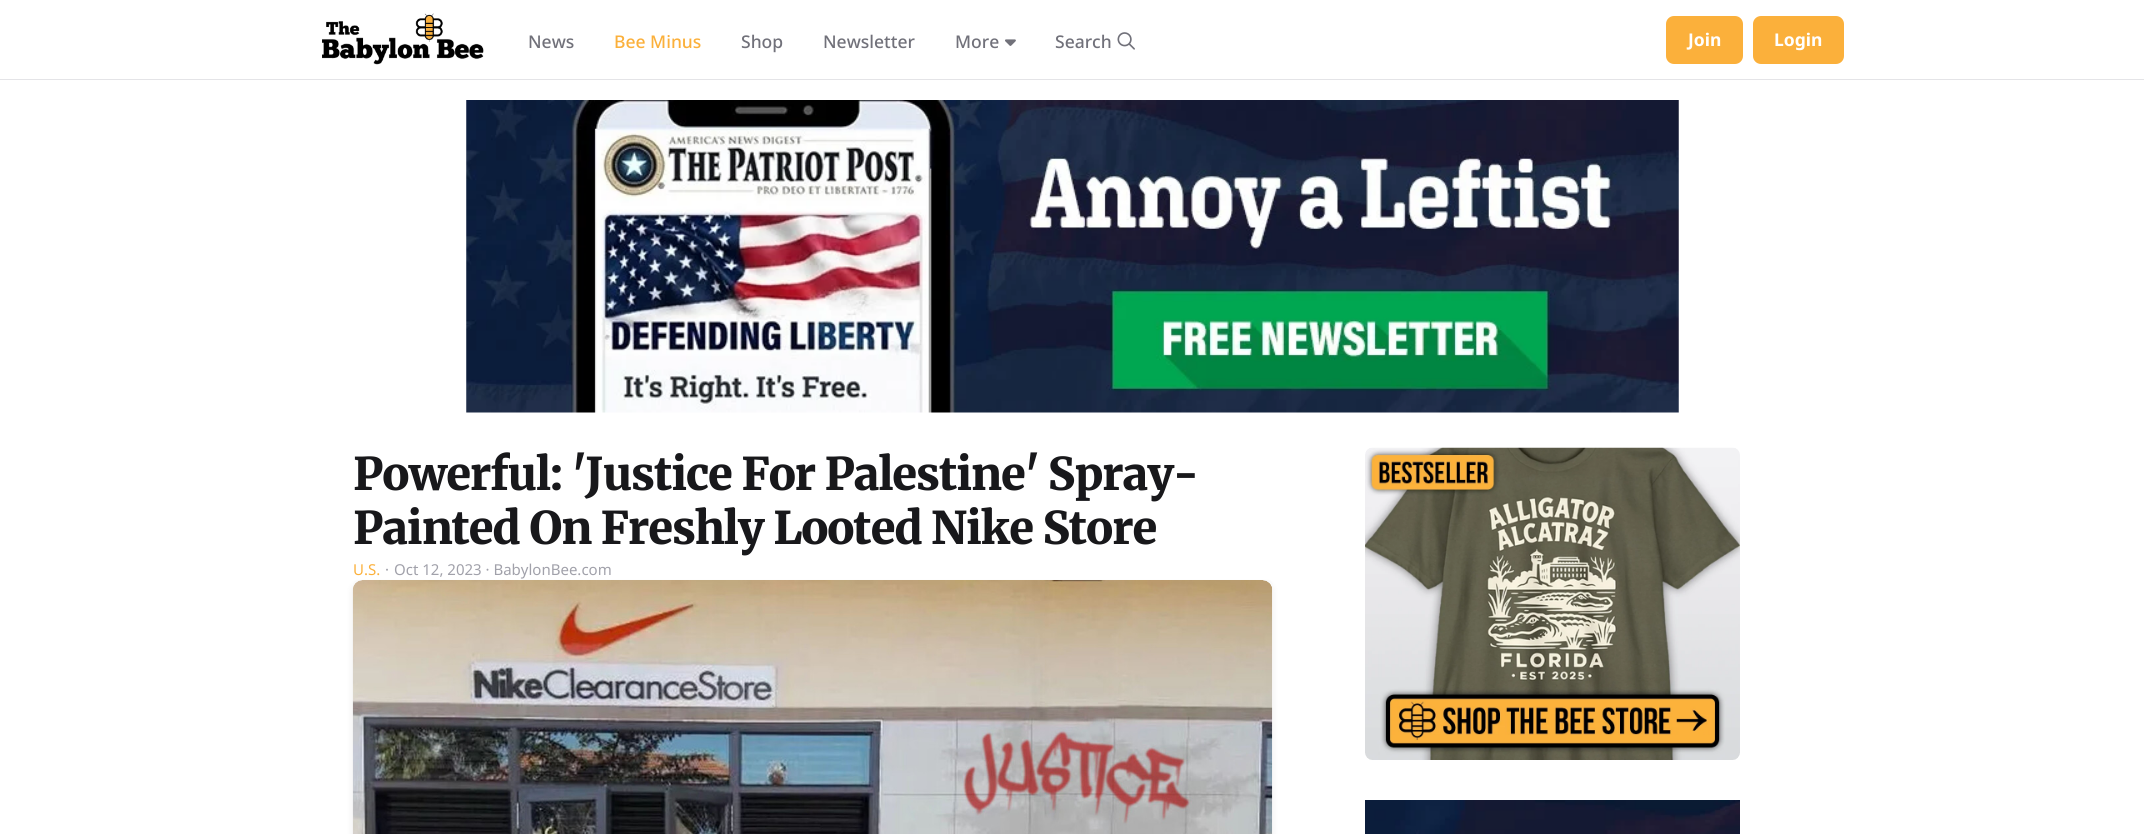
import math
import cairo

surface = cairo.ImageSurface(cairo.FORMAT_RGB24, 2144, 834)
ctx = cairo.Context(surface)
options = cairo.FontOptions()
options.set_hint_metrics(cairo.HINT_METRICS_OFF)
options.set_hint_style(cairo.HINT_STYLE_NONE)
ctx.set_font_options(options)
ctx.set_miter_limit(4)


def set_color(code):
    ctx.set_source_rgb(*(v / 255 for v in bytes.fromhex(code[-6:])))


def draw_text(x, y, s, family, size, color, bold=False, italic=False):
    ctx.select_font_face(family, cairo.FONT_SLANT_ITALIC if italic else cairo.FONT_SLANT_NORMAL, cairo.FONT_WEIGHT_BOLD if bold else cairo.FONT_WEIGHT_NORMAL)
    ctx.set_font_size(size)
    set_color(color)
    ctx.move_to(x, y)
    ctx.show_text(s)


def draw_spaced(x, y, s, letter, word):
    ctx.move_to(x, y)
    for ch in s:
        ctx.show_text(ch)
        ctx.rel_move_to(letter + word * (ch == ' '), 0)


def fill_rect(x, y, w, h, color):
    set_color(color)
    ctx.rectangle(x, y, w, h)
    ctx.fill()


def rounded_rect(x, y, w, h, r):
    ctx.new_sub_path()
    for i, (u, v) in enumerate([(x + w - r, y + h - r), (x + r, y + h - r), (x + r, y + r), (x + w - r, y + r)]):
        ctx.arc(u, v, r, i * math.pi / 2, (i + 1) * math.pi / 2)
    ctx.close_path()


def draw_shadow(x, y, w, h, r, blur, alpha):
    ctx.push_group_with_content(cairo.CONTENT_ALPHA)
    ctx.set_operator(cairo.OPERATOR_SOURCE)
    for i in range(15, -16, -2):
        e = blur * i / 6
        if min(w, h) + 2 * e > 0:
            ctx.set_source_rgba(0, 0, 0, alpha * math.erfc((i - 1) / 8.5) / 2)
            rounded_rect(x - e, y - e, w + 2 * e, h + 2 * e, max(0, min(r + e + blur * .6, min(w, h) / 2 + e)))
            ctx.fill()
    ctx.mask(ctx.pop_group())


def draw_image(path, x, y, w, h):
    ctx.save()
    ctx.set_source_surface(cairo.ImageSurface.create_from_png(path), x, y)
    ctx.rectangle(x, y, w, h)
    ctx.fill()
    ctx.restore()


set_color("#ffffff")
ctx.paint()
fill_rect(0, 79, 2144, 1, "#e4e4e7")
draw_image("assets/img1.png", 322, 13, 162, 52)
draw_text(528, 48, "News", "Noto Sans Medium", 17.5, "#71717a")
draw_text(614, 48, "Bee Minus", "Noto Sans Medium", 17.5, "#fbb03b")
draw_text(741, 48, "Shop", "Noto Sans Medium", 17.5, "#71717a")
draw_text(823, 48, "Newsletter", "Noto Sans Medium", 17.5, "#71717a")
draw_text(955, 48, "More", "Noto Sans Medium", 17.5, "#71717a")
draw_image("assets/img2.png", 1005, 39, 11, 7)
draw_text(1055, 48, "Search", "Noto Sans Medium", 17.5, "#71717a")
draw_image("assets/img3.png", 1117, 32, 18, 18)
set_color("#fbb03b")
rounded_rect(1666, 16, 77, 48, 8)
ctx.fill()
draw_text(1688, 46, "Join", "Noto Sans", 17.5, "#ffffff", bold=True)
set_color("#fbb03b")
rounded_rect(1753, 16, 91, 48, 8)
ctx.fill()
draw_text(1774, 46, "Login", "Noto Sans", 17.5, "#ffffff", bold=True)
draw_image("assets/img4.png", 466, 100, 1213, 313)
ctx.select_font_face("Merriweather Black")
ctx.set_font_size(45)
set_color("#18181b")
draw_spaced(353, 490, "Powerful: 'Justice For Palestine' Spray-", -1.1, 0)
draw_spaced(353, 544, "Painted On Freshly Looted Nike Store", -1.1, 0)
draw_text(353, 575, "U.S.", "Noto Sans", 15, "#fbb03b")
draw_text(385, 575, "·", "Noto Sans", 15, "#a1a1aa")
draw_text(394, 575, "Oct 12, 2023 · BabylonBee.com", "Noto Sans", 15, "#a1a1aa")
set_color("#000000")
draw_shadow(354, 586, 917, 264, 4, 4, 0.1)
set_color("#fafafa")
rounded_rect(353, 580, 920, 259, 5)
ctx.fill()
draw_image("assets/img5.png", 352, 580, 921, 254)
draw_image("assets/img6.png", 1365, 447, 375, 313)
draw_image("assets/img7.png", 1365, 800, 375, 34)
surface.write_to_png("output.png")
